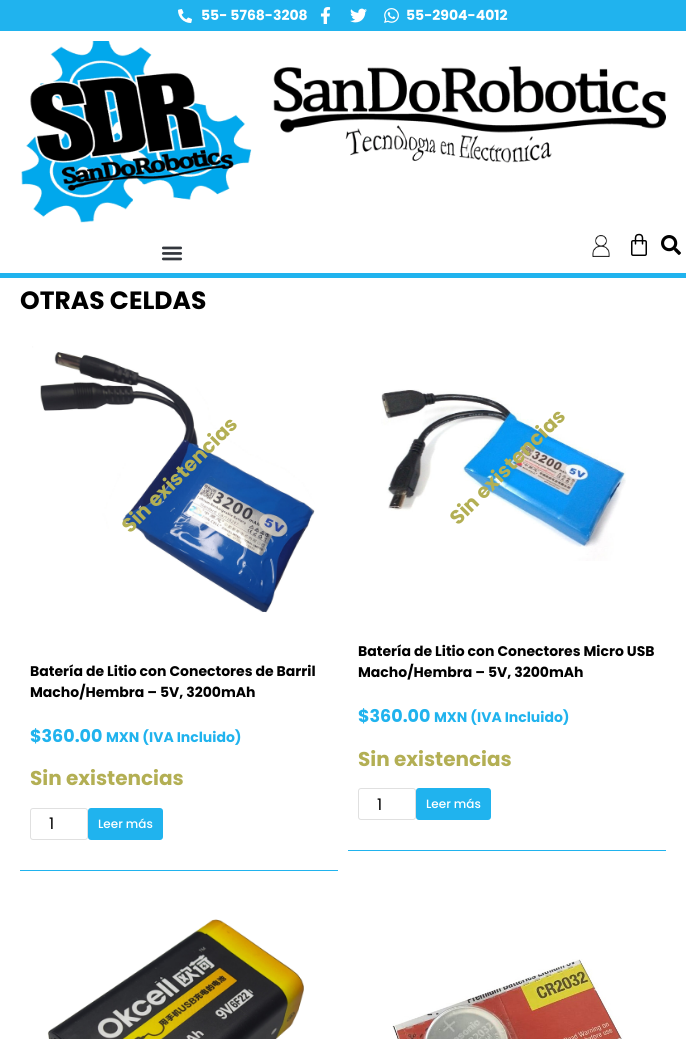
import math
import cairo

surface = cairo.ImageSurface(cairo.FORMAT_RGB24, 686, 1039)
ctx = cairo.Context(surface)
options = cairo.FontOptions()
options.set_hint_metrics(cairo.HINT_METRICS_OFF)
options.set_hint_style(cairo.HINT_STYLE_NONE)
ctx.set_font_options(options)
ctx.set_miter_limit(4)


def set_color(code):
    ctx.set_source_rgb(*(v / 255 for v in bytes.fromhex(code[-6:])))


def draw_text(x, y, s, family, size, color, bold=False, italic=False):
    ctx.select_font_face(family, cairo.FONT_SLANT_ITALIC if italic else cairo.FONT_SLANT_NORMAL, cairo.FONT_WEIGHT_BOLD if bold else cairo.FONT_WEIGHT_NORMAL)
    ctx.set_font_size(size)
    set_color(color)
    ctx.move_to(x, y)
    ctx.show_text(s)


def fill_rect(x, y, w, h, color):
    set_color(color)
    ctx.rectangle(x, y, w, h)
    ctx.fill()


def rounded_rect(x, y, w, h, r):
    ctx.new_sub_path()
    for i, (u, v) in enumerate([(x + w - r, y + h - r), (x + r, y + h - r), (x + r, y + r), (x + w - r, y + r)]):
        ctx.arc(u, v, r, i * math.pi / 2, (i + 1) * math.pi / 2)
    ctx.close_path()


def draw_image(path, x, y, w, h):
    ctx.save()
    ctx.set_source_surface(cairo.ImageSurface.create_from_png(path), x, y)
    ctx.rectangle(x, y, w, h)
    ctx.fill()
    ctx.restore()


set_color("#ffffff")
ctx.paint()
fill_rect(0, 0, 686, 31, "#20b3ee")
draw_image("assets/img1.png", 178, 9, 14, 14)
draw_text(201, 20, "55- 5768-3208", "Poppins", 14, "#ffffff", bold=True)
draw_image("assets/img2.png", 320, 7, 11, 17)
draw_image("assets/img3.png", 350, 8, 17, 15)
draw_image("assets/img4.png", 384, 8, 15, 15)
draw_text(406, 20, "55-2904-4012", "Poppins", 14, "#ffffff", bold=True)
fill_rect(0, 273, 686, 5, "#20b3ee")
draw_image("assets/img5.png", 21, 41, 645, 182)
draw_image("assets/img6.png", 161, 246, 22, 15)
draw_image("assets/img7.png", 592, 235, 18, 22)
draw_image("assets/img8.png", 631, 233, 16, 23)
draw_image("assets/img9.png", 661, 235, 20, 20)
draw_text(20, 309, "OTRAS CELDAS", "Poppins", 25, "#000000", bold=True)
fill_rect(20, 870, 318, 1, "#20b3ee")
draw_image("assets/img10.png", 32, 346, 283, 267)
ctx.save()
ctx.translate(130, 534)
ctx.rotate(-45 * math.pi / 180)
draw_text(0, 0, "Sin existencias", "Poppins", 20, "#b3af54", bold=True)
ctx.restore()
draw_text(30, 676, "Batería de Litio con Conectores de Barril", "Poppins", 14, "#000000", bold=True)
draw_text(30, 697, "Macho/Hembra – 5V, 3200mAh", "Poppins", 14, "#000000", bold=True)
draw_text(30, 742, "$360.00", "Poppins", 17.5, "#20b3ee", bold=True)
draw_text(106, 742, "MXN (IVA Incluido)", "Poppins", 14, "#20b3ee", bold=True)
draw_text(30, 785, "Sin existencias", "Poppins", 20, "#b3af54", bold=True)
rounded_rect(30.5, 808.5, 57, 31, 2.5)
set_color("#e0e0e0")
ctx.set_line_width(1)
ctx.stroke()
draw_text(49, 829, "1", "Poppins", 16, "#000000")
set_color("#20b3ee")
rounded_rect(88, 808, 75, 32, 3)
ctx.fill()
draw_text(98, 828, "Leer más", "Poppins Medium", 12, "#ffffff")
fill_rect(348, 850, 318, 1, "#20b3ee")
draw_image("assets/img11.png", 381, 389, 245, 172)
ctx.save()
ctx.translate(458, 526)
ctx.rotate(-45 * math.pi / 180)
draw_text(0, 0, "Sin existencias", "Poppins", 20, "#b3af54", bold=True)
ctx.restore()
draw_text(358, 656, "Batería de Litio con Conectores Micro USB", "Poppins", 14, "#000000", bold=True)
draw_text(358, 677, "Macho/Hembra – 5V, 3200mAh", "Poppins", 14, "#000000", bold=True)
draw_text(358, 722, "$360.00", "Poppins", 17.5, "#20b3ee", bold=True)
draw_text(434, 722, "MXN (IVA Incluido)", "Poppins", 14, "#20b3ee", bold=True)
draw_text(358, 766, "Sin existencias", "Poppins", 20, "#b3af54", bold=True)
rounded_rect(358.5, 788.5, 57, 31, 2.5)
set_color("#e0e0e0")
ctx.stroke()
draw_text(377, 810, "1", "Poppins", 16, "#000000")
set_color("#20b3ee")
rounded_rect(416, 788, 75, 32, 3)
ctx.fill()
draw_text(426, 808, "Leer más", "Poppins Medium", 12, "#ffffff")
draw_image("assets/img12.png", 47, 919, 257, 120)
draw_image("assets/img13.png", 392, 959, 231, 80)
surface.write_to_png("output.png")
